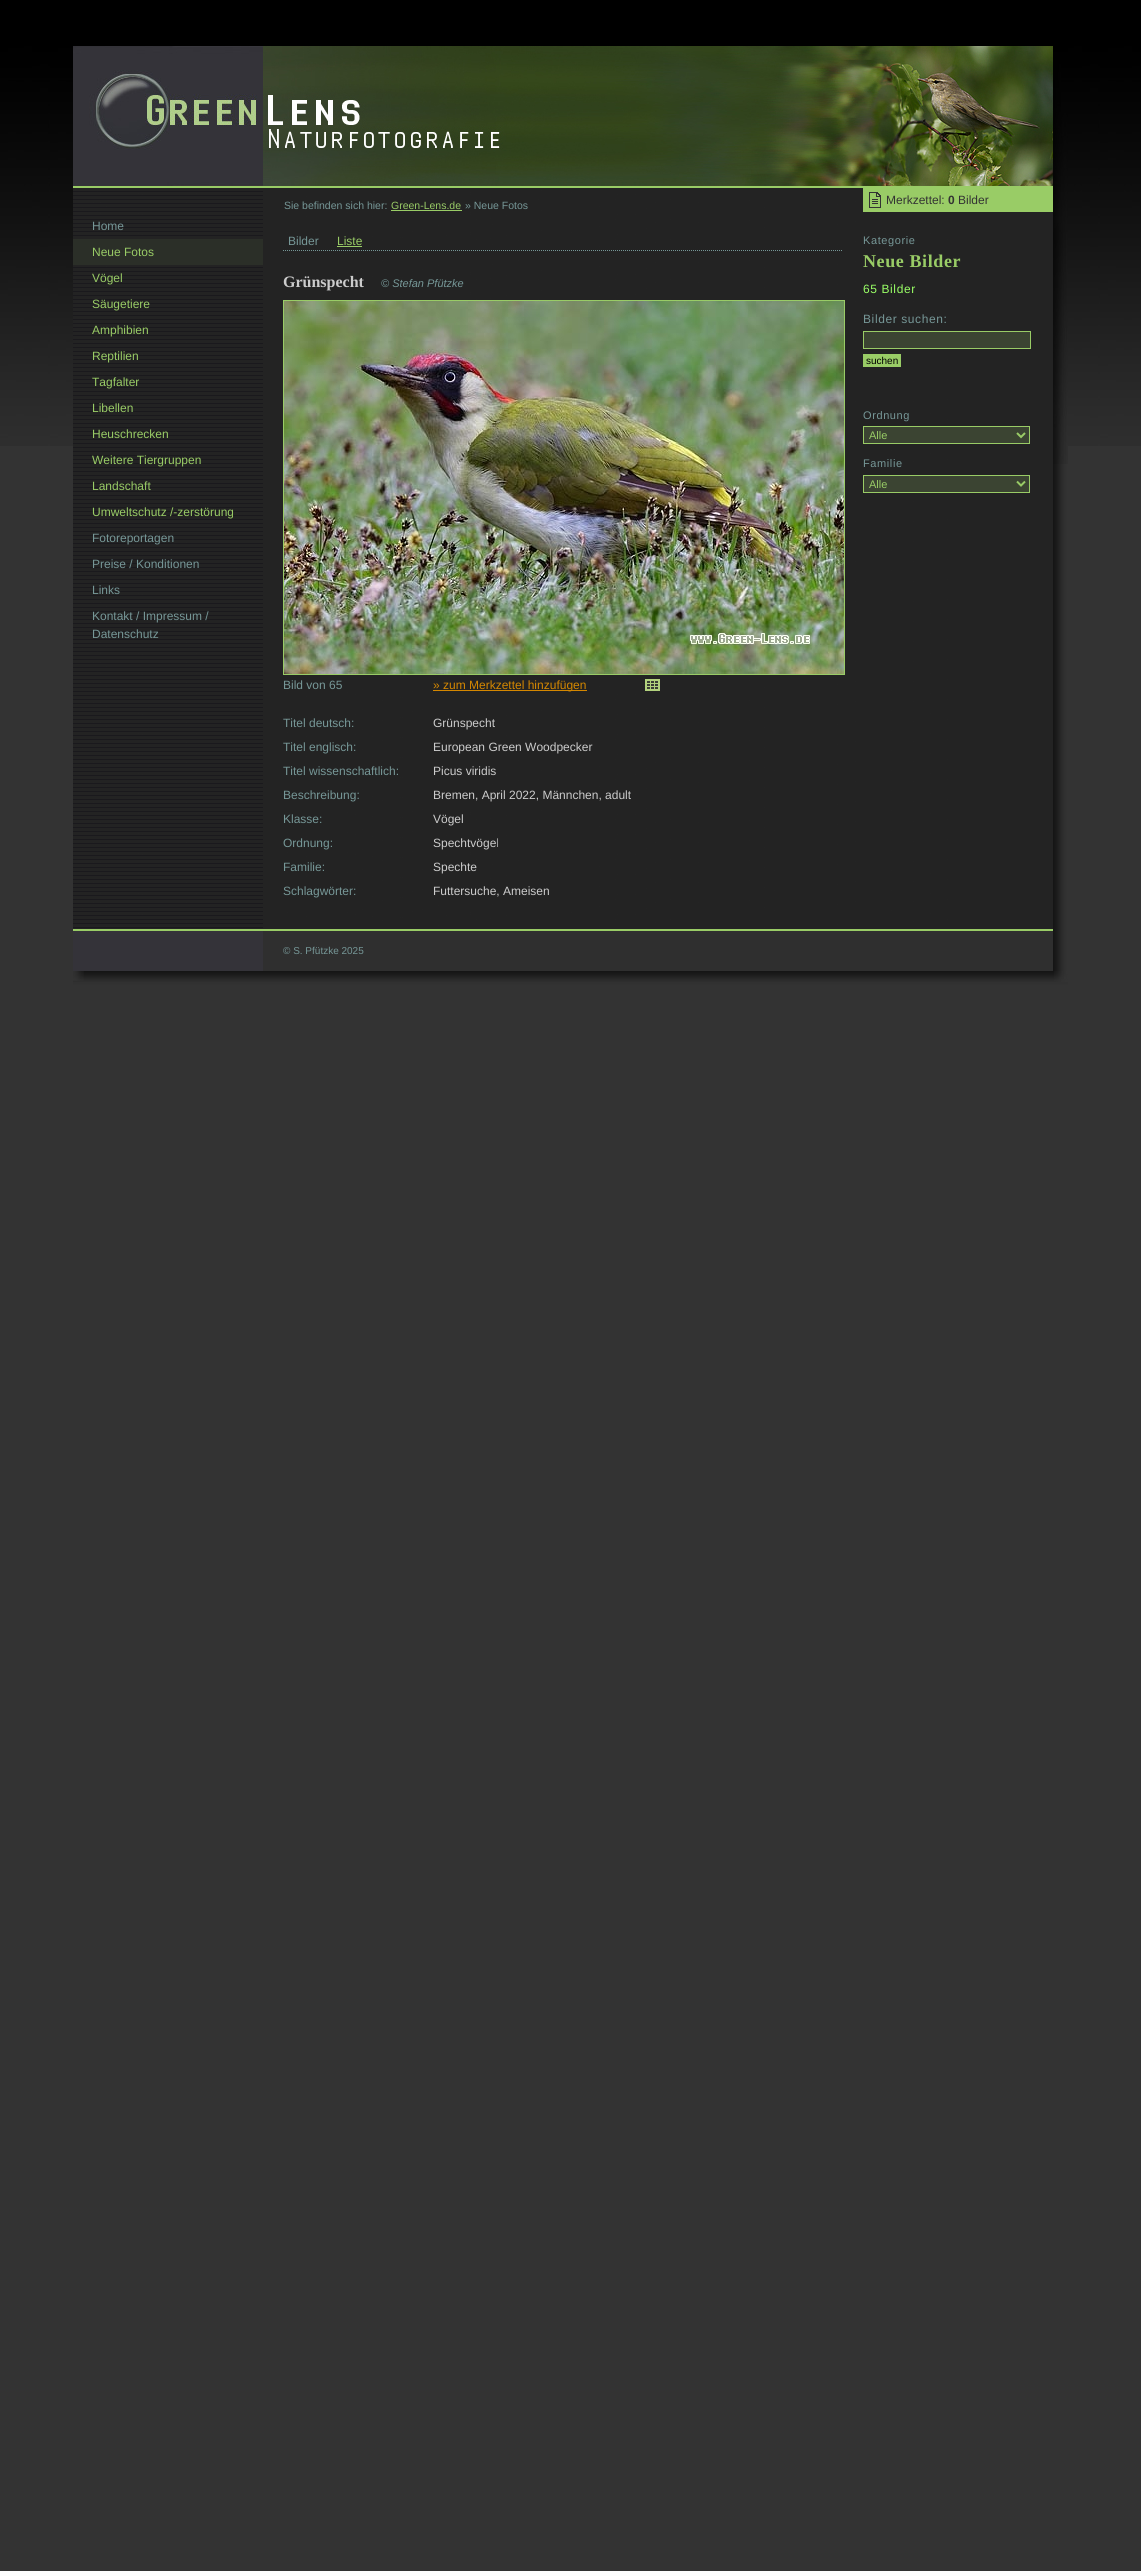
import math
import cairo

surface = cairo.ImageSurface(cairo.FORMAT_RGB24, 1141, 2571)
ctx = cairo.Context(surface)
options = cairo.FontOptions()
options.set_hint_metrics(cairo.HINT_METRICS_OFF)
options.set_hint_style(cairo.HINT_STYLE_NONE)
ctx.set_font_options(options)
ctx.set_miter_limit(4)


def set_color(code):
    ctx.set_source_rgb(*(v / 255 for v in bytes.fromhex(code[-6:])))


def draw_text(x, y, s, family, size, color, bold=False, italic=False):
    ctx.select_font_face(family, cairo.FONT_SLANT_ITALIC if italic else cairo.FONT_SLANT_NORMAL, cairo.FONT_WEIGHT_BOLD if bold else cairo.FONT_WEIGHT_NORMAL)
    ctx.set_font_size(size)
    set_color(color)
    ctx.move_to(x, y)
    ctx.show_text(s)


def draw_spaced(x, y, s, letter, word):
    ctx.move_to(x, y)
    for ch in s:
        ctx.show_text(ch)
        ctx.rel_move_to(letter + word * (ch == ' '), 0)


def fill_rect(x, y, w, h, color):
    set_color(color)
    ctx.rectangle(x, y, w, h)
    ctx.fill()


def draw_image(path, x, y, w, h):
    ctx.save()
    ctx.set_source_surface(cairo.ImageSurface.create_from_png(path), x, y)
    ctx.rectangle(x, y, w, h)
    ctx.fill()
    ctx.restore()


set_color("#333333")
ctx.paint()
draw_image("assets/img1.png", 0, 0, 1141, 446)
draw_image("assets/img2.png", 1053, 464, 15, 507)
draw_image("assets/img3.png", 1053, 0, 15, 464)
fill_rect(73, 186, 980, 2, "#99cc66")
draw_image("assets/img4.png", 73, 46, 190, 140)
draw_image("assets/img5.png", 263, 46, 790, 140)
draw_image("assets/img6.png", 73, 188, 980, 741)
draw_text(92, 230, "Home", "Liberation Sans", 12, "#769797")
fill_rect(73, 239, 190, 26, "#2b2f28")
draw_text(92, 256, "Neue Fotos", "Liberation Sans", 12, "#99cc66")
draw_text(92, 282, "Vögel", "Liberation Sans", 12, "#99cc66")
draw_text(92, 308, "Säugetiere", "Liberation Sans", 12, "#99cc66")
draw_text(92, 334, "Amphibien", "Liberation Sans", 12, "#99cc66")
draw_text(92, 360, "Reptilien", "Liberation Sans", 12, "#99cc66")
draw_text(92, 386, "Tagfalter", "Liberation Sans", 12, "#99cc66")
draw_text(92, 412, "Libellen", "Liberation Sans", 12, "#99cc66")
draw_text(92, 438, "Heuschrecken", "Liberation Sans", 12, "#99cc66")
draw_text(92, 464, "Weitere Tiergruppen", "Liberation Sans", 12, "#99cc66")
draw_text(92, 490, "Landschaft", "Liberation Sans", 12, "#99cc66")
draw_text(92, 516, "Umweltschutz /-zerstörung", "Liberation Sans", 12, "#99cc66")
draw_text(92, 542, "Fotoreportagen", "Liberation Sans", 12, "#769797")
draw_text(92, 568, "Preise / Konditionen", "Liberation Sans", 12, "#769797")
draw_text(92, 594, "Links", "Liberation Sans", 12, "#769797")
draw_text(92, 620, "Kontakt / Impressum /", "Liberation Sans", 12, "#769797")
draw_text(92, 638, "Datenschutz", "Liberation Sans", 12, "#769797")
draw_text(284, 209, "Sie befinden sich hier:", "Liberation Sans", 10.5, "#769797")
draw_text(391, 209, "Green-Lens.de", "Liberation Sans", 10.5, "#99cc66")
fill_rect(391, 210, 71, 1, "#99cc66")
draw_text(465, 209, "» Neue Fotos", "Liberation Sans", 10.5, "#769797")
ctx.new_path()
ctx.move_to(283, 250.5)
ctx.line_to(843, 250.5)
ctx.set_line_width(1)
ctx.set_dash([1, 1])
ctx.stroke()
draw_text(288, 245, "Bilder", "Liberation Sans", 12, "#769797")
draw_text(337, 245, "Liste", "Liberation Sans", 12, "#99cc66")
fill_rect(337, 246, 25, 1, "#99cc66")
draw_text(283, 287, "Grünspecht", "Liberation Serif", 16, "#cccccc", bold=True)
draw_text(381, 287, "© Stefan Pfützke", "Liberation Sans", 11, "#769797", italic=True)
ctx.rectangle(283.5, 300.5, 561, 374)
set_color("#99cc66")
ctx.set_dash([])
ctx.stroke()
draw_image("assets/img7.png", 284, 301, 560, 373)
draw_text(283, 689, "Bild von 65", "Liberation Sans", 12, "#769797")
fill_rect(433, 690, 154, 1, "#d48700")
draw_text(433, 689, "» zum Merkzettel hinzufügen", "Liberation Sans", 12, "#d48700")
draw_image("assets/img8.png", 645, 679, 15, 12)
draw_text(283, 727, "Titel deutsch:", "Liberation Sans", 12, "#769797")
draw_text(433, 727, "Grünspecht", "Liberation Sans", 12, "#cccccc")
draw_text(283, 751, "Titel englisch:", "Liberation Sans", 12, "#769797")
draw_text(433, 751, "European Green Woodpecker", "Liberation Sans", 12, "#cccccc")
draw_text(283, 775, "Titel wissenschaftlich:", "Liberation Sans", 12, "#769797")
draw_text(433, 775, "Picus viridis", "Liberation Sans", 12, "#cccccc")
draw_text(283, 799, "Beschreibung:", "Liberation Sans", 12, "#769797")
draw_text(433, 799, "Bremen, April 2022, Männchen, adult", "Liberation Sans", 12, "#cccccc")
draw_text(283, 823, "Klasse:", "Liberation Sans", 12, "#769797")
draw_text(433, 823, "Vögel", "Liberation Sans", 12, "#cccccc")
draw_text(283, 847, "Ordnung:", "Liberation Sans", 12, "#769797")
draw_text(433, 847, "Spechtvögel", "Liberation Sans", 12, "#cccccc")
draw_text(283, 871, "Familie:", "Liberation Sans", 12, "#769797")
draw_text(433, 871, "Spechte", "Liberation Sans", 12, "#cccccc")
draw_text(283, 895, "Schlagwörter:", "Liberation Sans", 12, "#769797")
draw_text(433, 895, "Futtersuche, Ameisen", "Liberation Sans", 12, "#cccccc")
fill_rect(863, 188, 190, 24, "#99cc66")
draw_image("assets/img9.png", 869, 192, 12, 16)
draw_text(886, 204, "Merkzettel:", "Liberation Sans", 12, "#333333")
draw_text(948, 204, "0", "Liberation Sans", 12, "#333333", bold=True)
draw_text(958, 204, "Bilder", "Liberation Sans", 12, "#333333")
ctx.set_font_size(11)
set_color("#769797")
draw_spaced(863, 244, "Kategorie", 0.6, 0)
ctx.select_font_face("Liberation Serif", cairo.FONT_SLANT_NORMAL, cairo.FONT_WEIGHT_BOLD)
ctx.set_font_size(18)
set_color("#99cc66")
draw_spaced(863, 267, "Neue Bilder", 0.6, 0)
ctx.select_font_face("Liberation Sans")
ctx.set_font_size(12)
set_color("#99ff66")
draw_spaced(863, 293, "65 Bilder", 0.6, 0)
set_color("#769797")
draw_spaced(863, 323, "Bilder suchen:", 0.6, 0)
set_color("#3b4432")
ctx.rectangle(863.5, 331.5, 167, 17)
ctx.fill_preserve()
set_color("#99cc66")
ctx.stroke()
fill_rect(863, 354, 38, 13, "#99cc66")
draw_text(866, 364, "suchen", "Liberation Sans", 10, "#000000")
ctx.set_font_size(11)
set_color("#769797")
draw_spaced(863, 419, "Ordnung", 0.6, 0)
set_color("#3b4432")
ctx.rectangle(863.5, 426.5, 166, 17)
ctx.fill_preserve()
set_color("#99cc66")
ctx.stroke()
ctx.new_path()
ctx.move_to(1017, 433)
ctx.line_to(1021, 437)
ctx.line_to(1025, 433)
ctx.set_line_width(2)
ctx.stroke()
draw_text(869, 439, "Alle", "Liberation Sans", 11, "#99cc66")
set_color("#769797")
draw_spaced(863, 467, "Familie", 0.6, 0)
set_color("#3b4432")
ctx.rectangle(863.5, 475.5, 166, 17)
ctx.fill_preserve()
set_color("#99cc66")
ctx.set_line_width(1)
ctx.stroke()
ctx.new_path()
ctx.move_to(1017, 481.5)
ctx.line_to(1021, 485.5)
ctx.line_to(1025, 481.5)
ctx.set_line_width(2)
ctx.stroke()
draw_text(869, 488, "Alle", "Liberation Sans", 11, "#99cc66")
fill_rect(263, 931, 790, 40, "#2f2f2f")
fill_rect(73, 931, 190, 40, "#343339")
fill_rect(73, 929, 980, 2, "#99cc66")
draw_text(283, 954, "© S. Pfützke 2025", "Liberation Sans", 10, "#769797")
draw_image("assets/img10.png", 73, 971, 995, 15)
draw_image("assets/img11.png", 73, 971, 11, 10)
draw_image("assets/img12.png", 1054, 971, 14, 11)
surface.write_to_png("output.png")
